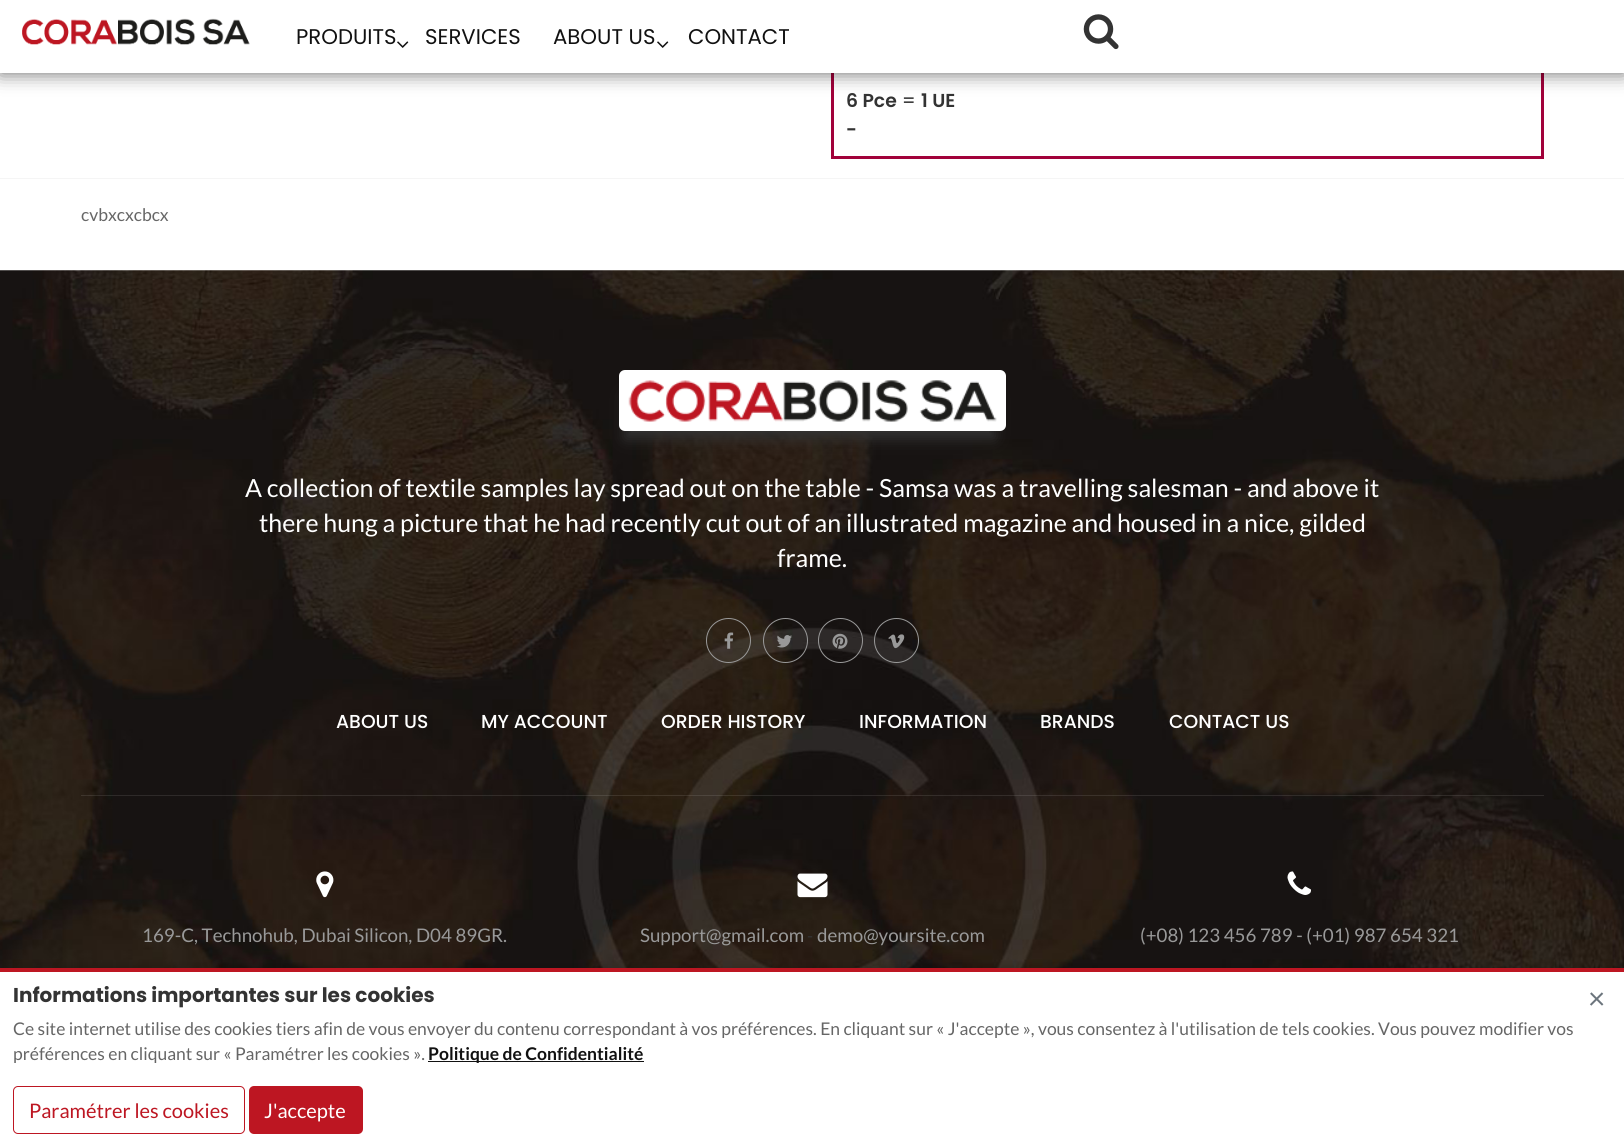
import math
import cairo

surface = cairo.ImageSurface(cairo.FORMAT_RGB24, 1624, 1146)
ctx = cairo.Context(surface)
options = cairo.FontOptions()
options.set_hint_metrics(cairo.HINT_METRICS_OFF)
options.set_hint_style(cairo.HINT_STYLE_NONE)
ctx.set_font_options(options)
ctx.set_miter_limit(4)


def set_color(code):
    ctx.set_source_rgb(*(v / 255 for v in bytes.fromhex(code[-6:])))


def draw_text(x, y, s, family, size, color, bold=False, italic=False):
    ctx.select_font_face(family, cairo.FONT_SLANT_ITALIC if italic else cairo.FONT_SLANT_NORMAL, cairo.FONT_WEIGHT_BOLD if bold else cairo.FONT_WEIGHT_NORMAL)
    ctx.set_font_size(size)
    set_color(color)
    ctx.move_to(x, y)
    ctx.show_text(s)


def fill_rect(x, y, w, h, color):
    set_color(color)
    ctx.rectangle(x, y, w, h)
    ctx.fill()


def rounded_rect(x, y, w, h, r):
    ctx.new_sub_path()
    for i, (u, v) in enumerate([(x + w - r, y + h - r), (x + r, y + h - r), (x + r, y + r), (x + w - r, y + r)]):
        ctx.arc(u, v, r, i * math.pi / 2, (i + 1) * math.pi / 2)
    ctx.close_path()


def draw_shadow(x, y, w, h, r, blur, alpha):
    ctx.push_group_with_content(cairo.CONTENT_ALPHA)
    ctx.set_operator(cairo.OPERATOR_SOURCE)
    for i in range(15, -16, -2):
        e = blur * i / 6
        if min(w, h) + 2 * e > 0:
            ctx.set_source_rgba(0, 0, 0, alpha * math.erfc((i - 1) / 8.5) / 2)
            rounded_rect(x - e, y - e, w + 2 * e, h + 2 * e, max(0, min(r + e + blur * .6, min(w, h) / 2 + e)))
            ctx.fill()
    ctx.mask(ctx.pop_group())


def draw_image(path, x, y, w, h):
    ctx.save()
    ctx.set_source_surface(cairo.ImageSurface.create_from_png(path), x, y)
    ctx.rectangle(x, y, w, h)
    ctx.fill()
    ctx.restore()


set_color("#ffffff")
ctx.paint()
ctx.rectangle(832.5, 24.5, 710, 133)
set_color("#a1013a")
ctx.set_line_width(3)
ctx.stroke()
set_color("#000000")
draw_shadow(0, 0, 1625, 73, 0, 9.5, 0.6)
fill_rect(0, 0, 1624, 73, "#ffffff")
draw_image("assets/img1.png", 22, 18, 228, 27)
draw_text(296, 44, "PRODUITS", "Poppins", 21.25, "#111111")
draw_image("assets/img2.png", 397, 41, 12, 7)
draw_text(425, 44, "SERVICES", "Poppins", 21.25, "#111111")
draw_text(553, 44, "ABOUT US", "Poppins", 21.25, "#111111")
draw_image("assets/img2.png", 657, 41, 12, 7)
draw_text(688, 44, "CONTACT", "Poppins", 21.25, "#111111")
draw_image("assets/img3.png", 1083, 14, 36, 36)
draw_text(846, 107, "6 Pce", "Poppins SemiBold", 18.75, "#333333")
draw_text(902, 107, "=", "Poppins", 18.75, "#232323")
draw_text(921, 107, "1 UE", "Poppins SemiBold", 18.75, "#333333")
draw_text(846, 136, "-", "Poppins SemiBold", 18.75, "#333333")
fill_rect(0, 178, 1624, 1, "#f5f5f5")
draw_text(81, 221, "cvbxcxcbcx", "Lato", 17.5, "#666666")
draw_image("assets/img4.png", 0, 270, 1624, 698)
set_color("#333333")
draw_shadow(625, 395, 370, 44, 0, 7, 1)
set_color("#ffffff")
rounded_rect(619, 370, 387, 61, 6)
ctx.fill()
draw_image("assets/img5.png", 628, 380, 369, 42)
draw_text(245, 497, "A collection of textile samples lay spread out on the table - Samsa was a travelling salesman - and above it", "Lato", 25, "#ffffff")
draw_text(259, 532, "there hung a picture that he had recently cut out of an illustrated magazine and housed in a nice, gilded", "Lato", 25, "#ffffff")
draw_text(777, 567, "frame.", "Lato", 25, "#ffffff")
ctx.new_path()
ctx.arc(728.5, 640.5, 22, 0, 2 * math.pi)
set_color("#999999")
ctx.set_line_width(1)
ctx.stroke()
draw_image("assets/img6.png", 724, 632, 10, 17)
ctx.arc(785.5, 640.5, 22, 0, 2 * math.pi)
ctx.stroke()
draw_image("assets/img7.png", 777, 635, 15, 13)
ctx.arc(840.5, 640.5, 22, 0, 2 * math.pi)
ctx.stroke()
draw_image("assets/img8.png", 832, 633, 16, 16)
ctx.arc(896.5, 640.5, 22, 0, 2 * math.pi)
ctx.stroke()
draw_image("assets/img9.png", 888, 634, 17, 15)
ctx.set_source_rgba(1, 1, 1, 0.1)
ctx.rectangle(81, 795, 1463, 1)
ctx.fill()
draw_text(336, 728, "ABOUT US", "Poppins Medium", 18.75, "#ffffff")
draw_text(481, 728, "MY ACCOUNT", "Poppins Medium", 18.75, "#ffffff")
draw_text(661, 728, "ORDER HISTORY", "Poppins Medium", 18.75, "#ffffff")
draw_text(859, 728, "INFORMATION", "Poppins Medium", 18.75, "#ffffff")
draw_text(1040, 728, "BRANDS", "Poppins Medium", 18.75, "#ffffff")
draw_text(1169, 728, "CONTACT US", "Poppins Medium", 18.75, "#ffffff")
draw_image("assets/img10.png", 316, 871, 18, 27)
draw_text(142, 942, "169-C, Technohub, Dubai Silicon, D04 89GR.", "Lato", 18.75, "#999999")
draw_image("assets/img11.png", 797, 873, 31, 25)
draw_text(640, 942, "Support@gmail.com", "Lato", 18.75, "#999999")
draw_text(807, 942, "-", "Lato", 17.5, "#333333")
draw_text(817, 942, "demo@yoursite.com", "Lato", 18.75, "#999999")
draw_image("assets/img12.png", 1287, 871, 24, 24)
draw_text(1140, 942, "(+08) 123 456 789 - (+01) 987 654 321", "Lato", 18.75, "#999999")
set_color("#000000")
draw_shadow(0, 965, 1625, 179, 0, 3, 0.1)
fill_rect(0, 972, 1624, 174, "#ffffff")
fill_rect(0, 968, 1624, 4, "#bd1622")
draw_text(13, 1002, "Informations importantes sur les cookies", "Poppins", 20, "#333333", bold=True)
draw_text(13, 1035, "Ce site internet utilise des cookies tiers afin de vous envoyer du contenu correspondant à vos préférences. En cliquant sur « J'accepte », vous consentez à l'utilisation de tels cookies. Vous pouvez modifier vos", "Lato", 17.5, "#666666")
draw_text(13, 1060, "préférences en cliquant sur « Paramétrer les cookies ».", "Lato", 17.5, "#666666")
fill_rect(428, 1061, 216, 1, "#111111")
draw_text(428, 1060, "Politique de Confidentialité", "Lato", 17.5, "#111111", bold=True)
rounded_rect(13.5, 1086.5, 231, 47, 4.5)
set_color("#bd1622")
ctx.stroke()
draw_text(29, 1118, "Paramétrer les cookies", "Lato", 20, "#bd1622")
rounded_rect(249, 1086, 114, 48, 5)
ctx.fill()
draw_text(264, 1118, "J'accepte", "Lato", 20, "#ffffff")
draw_text(1588, 1009, "×", "Lato", 30, "#6c757d")
surface.write_to_png("output.png")
